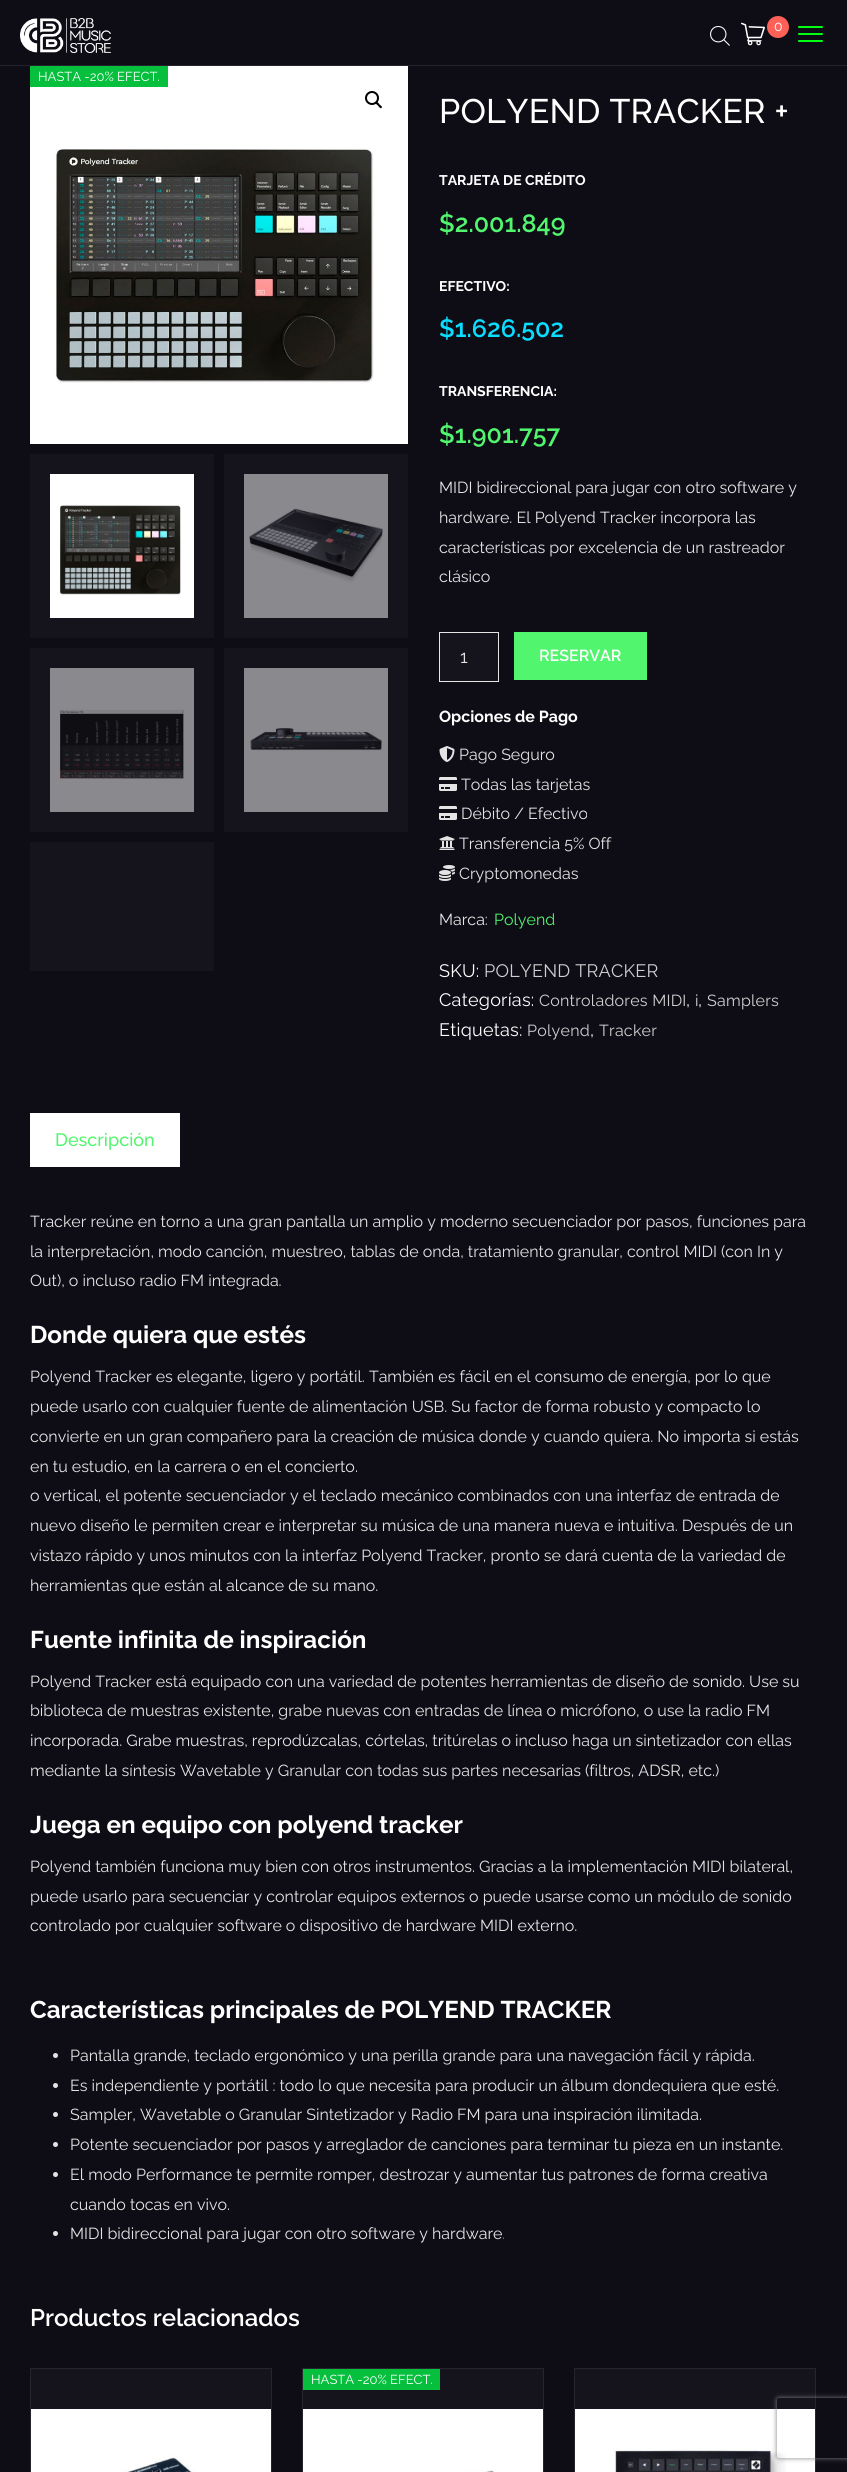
import math
import cairo

surface = cairo.ImageSurface(cairo.FORMAT_RGB24, 847, 2472)
ctx = cairo.Context(surface)
options = cairo.FontOptions()
options.set_hint_metrics(cairo.HINT_METRICS_OFF)
options.set_hint_style(cairo.HINT_STYLE_NONE)
ctx.set_font_options(options)
ctx.set_miter_limit(4)


def set_color(code):
    ctx.set_source_rgb(*(v / 255 for v in bytes.fromhex(code[-6:])))


def draw_text(x, y, s, family, size, color, bold=False, italic=False):
    ctx.select_font_face(family, cairo.FONT_SLANT_ITALIC if italic else cairo.FONT_SLANT_NORMAL, cairo.FONT_WEIGHT_BOLD if bold else cairo.FONT_WEIGHT_NORMAL)
    ctx.set_font_size(size)
    set_color(color)
    ctx.move_to(x, y)
    ctx.show_text(s)


def draw_spaced(x, y, s, letter, word):
    ctx.move_to(x, y)
    for ch in s:
        ctx.show_text(ch)
        ctx.rel_move_to(letter + word * (ch == ' '), 0)


def fill_rect(x, y, w, h, color):
    set_color(color)
    ctx.rectangle(x, y, w, h)
    ctx.fill()


def rounded_rect(x, y, w, h, r):
    ctx.new_sub_path()
    for i, (u, v) in enumerate([(x + w - r, y + h - r), (x + r, y + h - r), (x + r, y + r), (x + w - r, y + r)]):
        ctx.arc(u, v, r, i * math.pi / 2, (i + 1) * math.pi / 2)
    ctx.close_path()


def draw_shadow(x, y, w, h, r, blur, alpha):
    ctx.push_group_with_content(cairo.CONTENT_ALPHA)
    ctx.set_operator(cairo.OPERATOR_SOURCE)
    for i in range(15, -16, -2):
        e = blur * i / 6
        if min(w, h) + 2 * e > 0:
            ctx.set_source_rgba(0, 0, 0, alpha * math.erfc((i - 1) / 8.5) / 2)
            rounded_rect(x - e, y - e, w + 2 * e, h + 2 * e, max(0, min(r + e + blur * .6, min(w, h) / 2 + e)))
            ctx.fill()
    ctx.mask(ctx.pop_group())


def draw_image(path, x, y, w, h):
    ctx.save()
    ctx.set_source_surface(cairo.ImageSurface.create_from_png(path), x, y)
    ctx.rectangle(x, y, w, h)
    ctx.fill()
    ctx.restore()


set_color("#0e0d16")
ctx.paint()
fill_rect(0, 65, 847, 1, "#24232b")
draw_image("assets/img1.png", 20, 18, 91, 35)
draw_image("assets/img2.png", 710, 26, 20, 20)
draw_image("assets/img3.png", 741, 22, 24, 24)
set_color("#ff6159")
ctx.arc(778, 27, 11, 0, 2 * math.pi)
ctx.fill()
draw_text(774, 31, "0", "Raleway", 14, "#ffffff")
set_color("#00ff13")
rounded_rect(798, 26, 25, 2, 1)
ctx.fill()
rounded_rect(798, 33, 25, 2, 1)
ctx.fill()
rounded_rect(798, 40, 25, 2, 1)
ctx.fill()
draw_image("assets/img4.png", 30, 66, 378, 378)
fill_rect(30, 66, 138, 21, "#05bf3d")
draw_text(38, 81, "HASTA -20% EFECT.", "Raleway", 13, "#ffffff")
ctx.new_path()
ctx.arc(372, 98, 6, 0, 2 * math.pi)
set_color("#000000")
ctx.stroke()
ctx.new_path()
ctx.move_to(376, 102)
ctx.curve_to(377, 101, 379, 103.5, 379.5, 104.5)
ctx.curve_to(380, 105, 383, 106.5, 381.5, 108)
ctx.curve_to(380.5, 109, 378.5, 106.5, 378, 105.5)
ctx.curve_to(377.5, 105, 374.5, 103.5, 376, 102)
ctx.close_path()
ctx.fill()
fill_rect(30, 454, 184, 184, "#15141d")
draw_image("assets/img5.png", 50, 474, 144, 144)
fill_rect(224, 454, 184, 184, "#15141d")
draw_image("assets/img6.png", 244, 474, 144, 144)
fill_rect(30, 648, 184, 184, "#15141d")
draw_image("assets/img7.png", 50, 668, 144, 144)
fill_rect(224, 648, 184, 184, "#15141d")
draw_image("assets/img8.png", 244, 668, 144, 144)
fill_rect(30, 842, 184, 129, "#15141d")
ctx.select_font_face("Raleway Medium")
ctx.set_font_size(34)
set_color("#ffffff")
draw_spaced(439, 123, "POLYEND TRACKER +", 0.25, 0)
draw_text(439, 185, "TARJETA DE CRÉDITO", "Raleway", 14, "#ffffff", bold=True)
draw_text(439, 232, "$2.001.849", "Raleway SemiBold", 25, "#52f56e")
draw_text(439, 291, "EFECTIVO:", "Raleway", 14, "#ffffff", bold=True)
draw_text(439, 337, "$1.626.502", "Raleway SemiBold", 25, "#0bddff")
draw_text(439, 396, "TRANSFERENCIA:", "Raleway", 14, "#ffffff", bold=True)
draw_text(439, 443, "$1.901.757", "Raleway SemiBold", 25, "#52f56e")
draw_text(439, 493, "MIDI bidireccional para jugar con otro software y", "Raleway", 16, "#e4e4e4")
draw_text(439, 523, "hardware. El Polyend Tracker incorpora las", "Raleway", 16, "#e4e4e4")
draw_text(439, 553, "características por excelencia de un rastreador", "Raleway", 16, "#e4e4e4")
draw_text(439, 582, "clásico", "Raleway", 16, "#e4e4e4")
set_color("#15141d")
ctx.rectangle(439.5, 632.5, 59, 49)
ctx.fill_preserve()
set_color("#e5e5e5")
ctx.set_line_width(1)
ctx.stroke()
draw_text(460, 663, "1", "Raleway", 18, "#e4e4e4")
fill_rect(514, 632, 133, 48, "#52f56e")
draw_text(539, 661, "RESERVAR", "Raleway SemiBold", 16, "#ffffff")
draw_text(439, 722, "Opciones de Pago", "Raleway", 16, "#ffffff", bold=True)
draw_image("assets/img9.png", 439, 746, 16, 16)
draw_text(459, 760, "Pago Seguro", "Raleway", 16, "#e4e4e4")
draw_image("assets/img10.png", 439, 777, 18, 14)
draw_text(461, 790, "Todas las tarjetas", "Raleway", 16, "#e4e4e4")
draw_image("assets/img10.png", 439, 806, 18, 14)
draw_text(461, 819, "Débito / Efectivo", "Raleway", 16, "#e4e4e4")
draw_image("assets/img11.png", 439, 836, 16, 14)
draw_text(459, 849, "Transferencia 5% Off", "Raleway", 16, "#e4e4e4")
draw_image("assets/img12.png", 439, 865, 16, 16)
draw_text(459, 879, "Cryptomonedas", "Raleway", 16, "#e4e4e4")
draw_text(439, 925, "Marca:", "Raleway", 16, "#e4e4e4")
draw_text(494, 925, "Polyend", "Raleway", 16, "#52f56e")
ctx.set_font_size(18)
set_color("#ffffff")
draw_spaced(439, 977, "SKU:", 0.25, 0)
set_color("#cfcfd0")
draw_spaced(484, 977, "POLYEND TRACKER", 0.25, 0)
set_color("#ffffff")
draw_spaced(439, 1006, "Categorías:", 0.25, 0)
ctx.set_font_size(16)
set_color("#cfcfd0")
draw_spaced(539, 1006, "Controladores MIDI", 0.25, 0)
ctx.set_font_size(18)
set_color("#ffffff")
draw_spaced(686, 1006, ",", 0.25, 0)
ctx.set_font_size(16)
set_color("#cfcfd0")
draw_spaced(695, 1006, "i", 0.25, 0)
ctx.set_font_size(18)
set_color("#ffffff")
draw_spaced(698, 1006, ",", 0.25, 0)
ctx.set_font_size(16)
set_color("#cfcfd0")
draw_spaced(707, 1006, "Samplers", 0.25, 0)
ctx.set_font_size(18)
set_color("#ffffff")
draw_spaced(439, 1036, "Etiquetas:", 0.25, 0)
ctx.set_font_size(16)
set_color("#cfcfd0")
draw_spaced(527, 1036, "Polyend", 0.25, 0)
ctx.set_font_size(18)
set_color("#ffffff")
draw_spaced(590, 1036, ",", 0.25, 0)
ctx.set_font_size(16)
set_color("#cfcfd0")
draw_spaced(599, 1036, "Tracker", 0.25, 0)
fill_rect(30, 1113, 150, 54, "#ffffff")
draw_text(55, 1146, "Descripción", "Raleway Medium", 18, "#52f56e")
draw_text(30, 1227, "Tracker reúne en torno a una gran pantalla un amplio y moderno secuenciador por pasos, funciones para", "Raleway", 16, "#e4e4e4")
draw_text(30, 1257, "la interpretación, modo canción, muestreo, tablas de onda, tratamiento granular, control MIDI (con In y", "Raleway", 16, "#e4e4e4")
draw_text(30, 1286, "Out), o incluso radio FM integrada.", "Raleway", 16, "#e4e4e4")
draw_text(30, 1343, "Donde quiera que estés", "Raleway", 24.25, "#ffffff", bold=True)
draw_text(30, 1382, "Polyend Tracker es elegante, ligero y portátil. También es fácil en el consumo de energía, por lo que", "Raleway", 16, "#e4e4e4")
draw_text(30, 1412, "puede usarlo con cualquier fuente de alimentación USB. Su factor de forma robusto y compacto lo", "Raleway", 16, "#e4e4e4")
draw_text(30, 1442, "convierte en un gran compañero para la creación de música donde y cuando quiera. No importa si estás", "Raleway", 16, "#e4e4e4")
draw_text(30, 1472, "en tu estudio, en la carrera o en el concierto.", "Raleway", 16, "#e4e4e4")
draw_text(30, 1501, "o vertical, el potente secuenciador y el teclado mecánico combinados con una interfaz de entrada de", "Raleway", 16, "#e4e4e4")
draw_text(30, 1531, "nuevo diseño le permiten crear e interpretar su música de una manera nueva e intuitiva. Después de un", "Raleway", 16, "#e4e4e4")
draw_text(30, 1561, "vistazo rápido y unos minutos con la interfaz Polyend Tracker, pronto se dará cuenta de la variedad de", "Raleway", 16, "#e4e4e4")
draw_text(30, 1591, "herramientas que están al alcance de su mano.", "Raleway", 16, "#e4e4e4")
draw_text(30, 1648, "Fuente infinita de inspiración", "Raleway", 24.25, "#ffffff", bold=True)
draw_text(30, 1687, "Polyend Tracker está equipado con una variedad de potentes herramientas de diseño de sonido. Use su", "Raleway", 16, "#e4e4e4")
draw_text(30, 1716, "biblioteca de muestras existente, grabe nuevas con entradas de línea o micrófono, o use la radio FM", "Raleway", 16, "#e4e4e4")
draw_text(30, 1746, "incorporada. Grabe muestras, reprodúzcalas, córtelas, tritúrelas o incluso haga un sintetizador con ellas", "Raleway", 16, "#e4e4e4")
draw_text(30, 1776, "mediante la síntesis Wavetable y Granular con todas sus partes necesarias (filtros, ADSR, etc.)", "Raleway", 16, "#e4e4e4")
draw_text(30, 1833, "Juega en equipo con polyend tracker", "Raleway", 24.25, "#ffffff", bold=True)
draw_text(30, 1872, "Polyend también funciona muy bien con otros instrumentos. Gracias a la implementación MIDI bilateral,", "Raleway", 16, "#e4e4e4")
draw_text(30, 1902, "puede usarlo para secuenciar y controlar equipos externos o puede usarse como un módulo de sonido", "Raleway", 16, "#e4e4e4")
draw_text(30, 1931, "controlado por cualquier software o dispositivo de hardware MIDI externo.", "Raleway", 16, "#e4e4e4")
draw_text(30, 2018, "Características principales de POLYEND TRACKER", "Raleway", 24.25, "#ffffff", bold=True)
set_color("#e4e4e4")
ctx.new_path()
ctx.arc(55.5, 2055.5, 2.5, 0, 2 * math.pi)
ctx.fill()
draw_text(70, 2061, "Pantalla grande, teclado ergonómico y una perilla grande para una navegación fácil y rápida.", "Raleway", 16, "#e4e4e4")
ctx.new_path()
ctx.arc(55.5, 2085.5, 2.5, 0, 2 * math.pi)
ctx.fill()
draw_text(70, 2091, "Es independiente y portátil : todo lo que necesita para producir un álbum dondequiera que esté.", "Raleway", 16, "#e4e4e4")
ctx.new_path()
ctx.arc(55.5, 2114.5, 2.5, 0, 2 * math.pi)
ctx.fill()
draw_text(70, 2120, "Sampler, Wavetable o Granular Sintetizador y Radio FM para una inspiración ilimitada.", "Raleway", 16, "#e4e4e4")
ctx.new_path()
ctx.arc(55.5, 2144.5, 2.5, 0, 2 * math.pi)
ctx.fill()
draw_text(70, 2150, "Potente secuenciador por pasos y arreglador de canciones para terminar tu pieza en un instante.", "Raleway", 16, "#e4e4e4")
ctx.new_path()
ctx.arc(55.5, 2174.5, 2.5, 0, 2 * math.pi)
ctx.fill()
draw_text(70, 2180, "El modo Performance te permite romper, destrozar y aumentar tus patrones de forma creativa", "Raleway", 16, "#e4e4e4")
draw_text(70, 2210, "cuando tocas en vivo.", "Raleway", 16, "#e4e4e4")
ctx.new_path()
ctx.arc(55.5, 2233.5, 2.5, 0, 2 * math.pi)
ctx.fill()
draw_text(70, 2239, "MIDI bidireccional para jugar con otro software y hardware.", "Raleway", 16, "#e4e4e4")
draw_text(30, 2326, "Productos relacionados", "Raleway SemiBold", 24, "#ffffff")
fill_rect(31, 2369, 240, 40, "#15141d")
ctx.rectangle(30.5, 2368.5, 241, 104)
set_color("#26252d")
ctx.stroke()
draw_image("assets/img13.png", 31, 2409, 240, 63)
fill_rect(303, 2369, 240, 40, "#15141d")
ctx.rectangle(302.5, 2368.5, 241, 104)
set_color("#26252d")
ctx.stroke()
fill_rect(303, 2369, 137, 21, "#05bf3d")
draw_text(311, 2384, "HASTA -20% EFECT.", "Raleway", 13, "#ffffff")
draw_image("assets/img14.png", 303, 2409, 240, 63)
fill_rect(575, 2369, 240, 40, "#15141d")
ctx.rectangle(574.5, 2368.5, 241, 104)
set_color("#26252d")
ctx.stroke()
draw_image("assets/img15.png", 575, 2409, 240, 63)
ctx.save()
ctx.set_fill_rule(cairo.FILL_RULE_EVEN_ODD)
ctx.new_path()
ctx.move_to(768, 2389)
ctx.line_to(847, 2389)
ctx.line_to(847, 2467)
ctx.line_to(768, 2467)
ctx.close_path()
ctx.move_to(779, 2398)
ctx.line_to(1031, 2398)
ctx.curve_to(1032, 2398, 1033, 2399, 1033, 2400)
ctx.line_to(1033, 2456)
ctx.curve_to(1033, 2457, 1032, 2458, 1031, 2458)
ctx.line_to(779, 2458)
ctx.curve_to(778, 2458, 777, 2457, 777, 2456)
ctx.line_to(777, 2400)
ctx.curve_to(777, 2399, 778, 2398, 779, 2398)
ctx.close_path()
ctx.clip()
set_color("#808080")
draw_shadow(777, 2398, 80, 60, 2, 2.5, 1)
ctx.restore()
surface.write_to_png("output.png")
